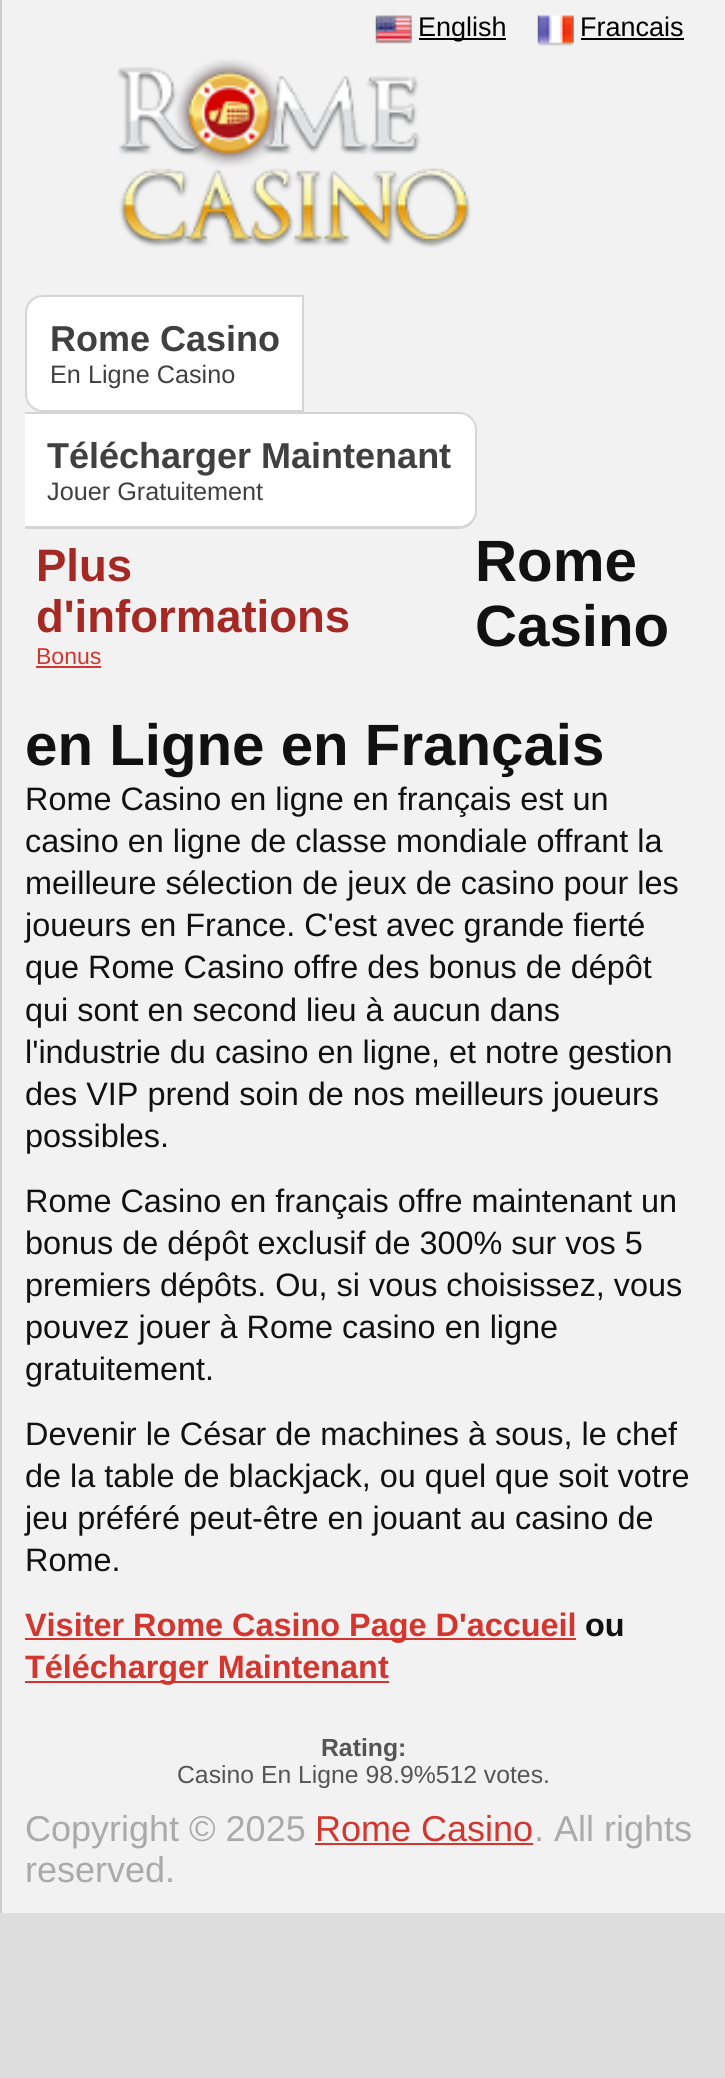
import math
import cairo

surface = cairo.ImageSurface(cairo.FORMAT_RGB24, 725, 2078)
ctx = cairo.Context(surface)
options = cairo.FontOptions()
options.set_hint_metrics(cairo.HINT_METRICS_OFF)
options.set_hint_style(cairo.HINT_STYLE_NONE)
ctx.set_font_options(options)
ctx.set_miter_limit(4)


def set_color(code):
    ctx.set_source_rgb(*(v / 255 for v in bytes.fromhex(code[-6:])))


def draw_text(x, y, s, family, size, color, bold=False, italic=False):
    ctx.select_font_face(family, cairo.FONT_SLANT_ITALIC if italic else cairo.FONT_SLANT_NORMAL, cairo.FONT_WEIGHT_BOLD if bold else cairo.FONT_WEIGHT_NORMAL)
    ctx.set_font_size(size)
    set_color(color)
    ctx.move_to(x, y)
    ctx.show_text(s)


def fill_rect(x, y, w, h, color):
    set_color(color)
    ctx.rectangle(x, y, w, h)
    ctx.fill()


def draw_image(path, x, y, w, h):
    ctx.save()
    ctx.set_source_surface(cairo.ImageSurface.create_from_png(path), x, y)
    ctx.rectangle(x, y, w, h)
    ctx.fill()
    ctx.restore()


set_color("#dddddd")
ctx.paint()
fill_rect(2, 0, 723, 1913, "#f2f2f2")
fill_rect(0, 0, 2, 1913, "#cccccc")
draw_image("assets/img1.png", 375, 15, 37, 29)
fill_rect(419, 38, 87, 2, "#000000")
draw_text(418, 36, "English", "Liberation Sans", 27, "#000000")
draw_image("assets/img2.png", 537, 15, 37, 31)
draw_text(580, 36, "Francais", "Liberation Sans", 27, "#000000")
fill_rect(581, 38, 103, 2, "#000000")
draw_image("assets/img3.png", 117, 59, 354, 189)
set_color("#ffffff")
ctx.new_path()
ctx.move_to(43, 296)
ctx.line_to(303, 296)
ctx.line_to(303, 411)
ctx.line_to(43, 411)
ctx.curve_to(33.5, 411, 26, 403.5, 26, 394)
ctx.line_to(26, 313)
ctx.curve_to(26, 303.5, 33.5, 296, 43, 296)
ctx.close_path()
ctx.fill_preserve()
set_color("#d5d5d5")
ctx.stroke()
draw_text(50, 351, "Rome Casino", "Liberation Sans", 36, "#414040", bold=True)
draw_text(50, 383, "En Ligne Casino", "Liberation Sans", 25.25, "#414040")
set_color("#ffffff")
ctx.new_path()
ctx.move_to(25, 412)
ctx.line_to(459, 412)
ctx.curve_to(469, 412, 477, 420, 477, 430)
ctx.line_to(477, 511)
ctx.curve_to(477, 521, 469, 529, 459, 529)
ctx.line_to(25, 529)
ctx.close_path()
ctx.fill()
set_color("#d5d5d5")
ctx.set_fill_rule(cairo.FILL_RULE_EVEN_ODD)
ctx.new_path()
ctx.move_to(25, 412)
ctx.line_to(459, 412)
ctx.curve_to(469, 412, 477, 420, 477, 430)
ctx.line_to(477, 511)
ctx.curve_to(477, 521, 469, 529, 459, 529)
ctx.line_to(25, 529)
ctx.close_path()
ctx.move_to(25, 414)
ctx.line_to(459, 414)
ctx.curve_to(468, 414, 475, 421, 475, 430)
ctx.line_to(475, 511)
ctx.curve_to(475, 519, 468, 526, 459, 526)
ctx.line_to(25, 526)
ctx.close_path()
ctx.fill()
draw_text(47, 468, "Télécharger Maintenant", "Liberation Sans", 36, "#414040", bold=True)
draw_text(47, 500, "Jouer Gratuitement", "Liberation Sans", 25.25, "#414040")
draw_text(475, 581, "Rome", "Liberation Sans", 58.25, "#111111", bold=True)
draw_text(475, 646, "Casino", "Liberation Sans", 58.25, "#111111", bold=True)
draw_text(25, 765, "en Ligne en Français", "Liberation Sans", 58.25, "#111111", bold=True)
draw_text(25, 810, "Rome Casino en ligne en français est un", "Liberation Sans", 32.4, "#111111")
draw_text(25, 852, "casino en ligne de classe mondiale offrant la", "Liberation Sans", 32.4, "#111111")
draw_text(25, 894, "meilleure sélection de jeux de casino pour les", "Liberation Sans", 32.4, "#111111")
draw_text(25, 936, "joueurs en France. C'est avec grande fierté", "Liberation Sans", 32.4, "#111111")
draw_text(25, 978, "que Rome Casino offre des bonus de dépôt", "Liberation Sans", 32.4, "#111111")
draw_text(25, 1021, "qui sont en second lieu à aucun dans", "Liberation Sans", 32.4, "#111111")
draw_text(25, 1063, "l'industrie du casino en ligne, et notre gestion", "Liberation Sans", 32.4, "#111111")
draw_text(25, 1105, "des VIP prend soin de nos meilleurs joueurs", "Liberation Sans", 32.4, "#111111")
draw_text(25, 1147, "possibles.", "Liberation Sans", 32.4, "#111111")
draw_text(25, 1212, "Rome Casino en français offre maintenant un", "Liberation Sans", 32.4, "#111111")
draw_text(25, 1254, "bonus de dépôt exclusif de 300% sur vos 5", "Liberation Sans", 32.4, "#111111")
draw_text(25, 1296, "premiers dépôts. Ou, si vous choisissez, vous", "Liberation Sans", 32.4, "#111111")
draw_text(25, 1338, "pouvez jouer à Rome casino en ligne", "Liberation Sans", 32.4, "#111111")
draw_text(25, 1380, "gratuitement.", "Liberation Sans", 32.4, "#111111")
draw_text(25, 1445, "Devenir le César de machines à sous, le chef", "Liberation Sans", 32.4, "#111111")
draw_text(25, 1487, "de la table de blackjack, ou quel que soit votre", "Liberation Sans", 32.4, "#111111")
draw_text(25, 1529, "jeu préféré peut-être en jouant au casino de", "Liberation Sans", 32.4, "#111111")
draw_text(25, 1571, "Rome.", "Liberation Sans", 32.4, "#111111")
fill_rect(25, 1638, 551, 2, "#d2362f")
draw_text(25, 1636, "Visiter Rome Casino Page D'accueil", "Liberation Sans", 32.4, "#d2362f", bold=True)
draw_text(585, 1636, "ou", "Liberation Sans", 32.4, "#111111", bold=True)
fill_rect(25, 1681, 364, 2, "#d2362f")
draw_text(25, 1678, "Télécharger Maintenant", "Liberation Sans", 32.4, "#d2362f", bold=True)
draw_text(36, 581, "Plus", "Liberation Sans", 45.5, "#a42823", bold=True)
draw_text(36, 632, "d'informations", "Liberation Sans", 45.5, "#a42823", bold=True)
draw_text(36, 664, "Bonus", "Liberation Sans", 23, "#d2362f")
fill_rect(36, 666, 65, 2, "#d2362f")
draw_text(321, 1756, "Rating:", "Liberation Sans", 24.75, "#555555", bold=True)
draw_text(177, 1783, "Casino En Ligne 98.9%512 votes.", "Liberation Sans", 24.75, "#555555")
draw_text(25, 1841, "Copyright © 2025", "Liberation Sans", 36, "#aaaaaa")
draw_text(315, 1841, "Rome Casino", "Liberation Sans", 36, "#d2362f")
fill_rect(315, 1843, 218, 2, "#d2362f")
draw_text(534, 1841, ". All rights", "Liberation Sans", 36, "#aaaaaa")
draw_text(25, 1882, "reserved.", "Liberation Sans", 36, "#aaaaaa")
surface.write_to_png("output.png")
